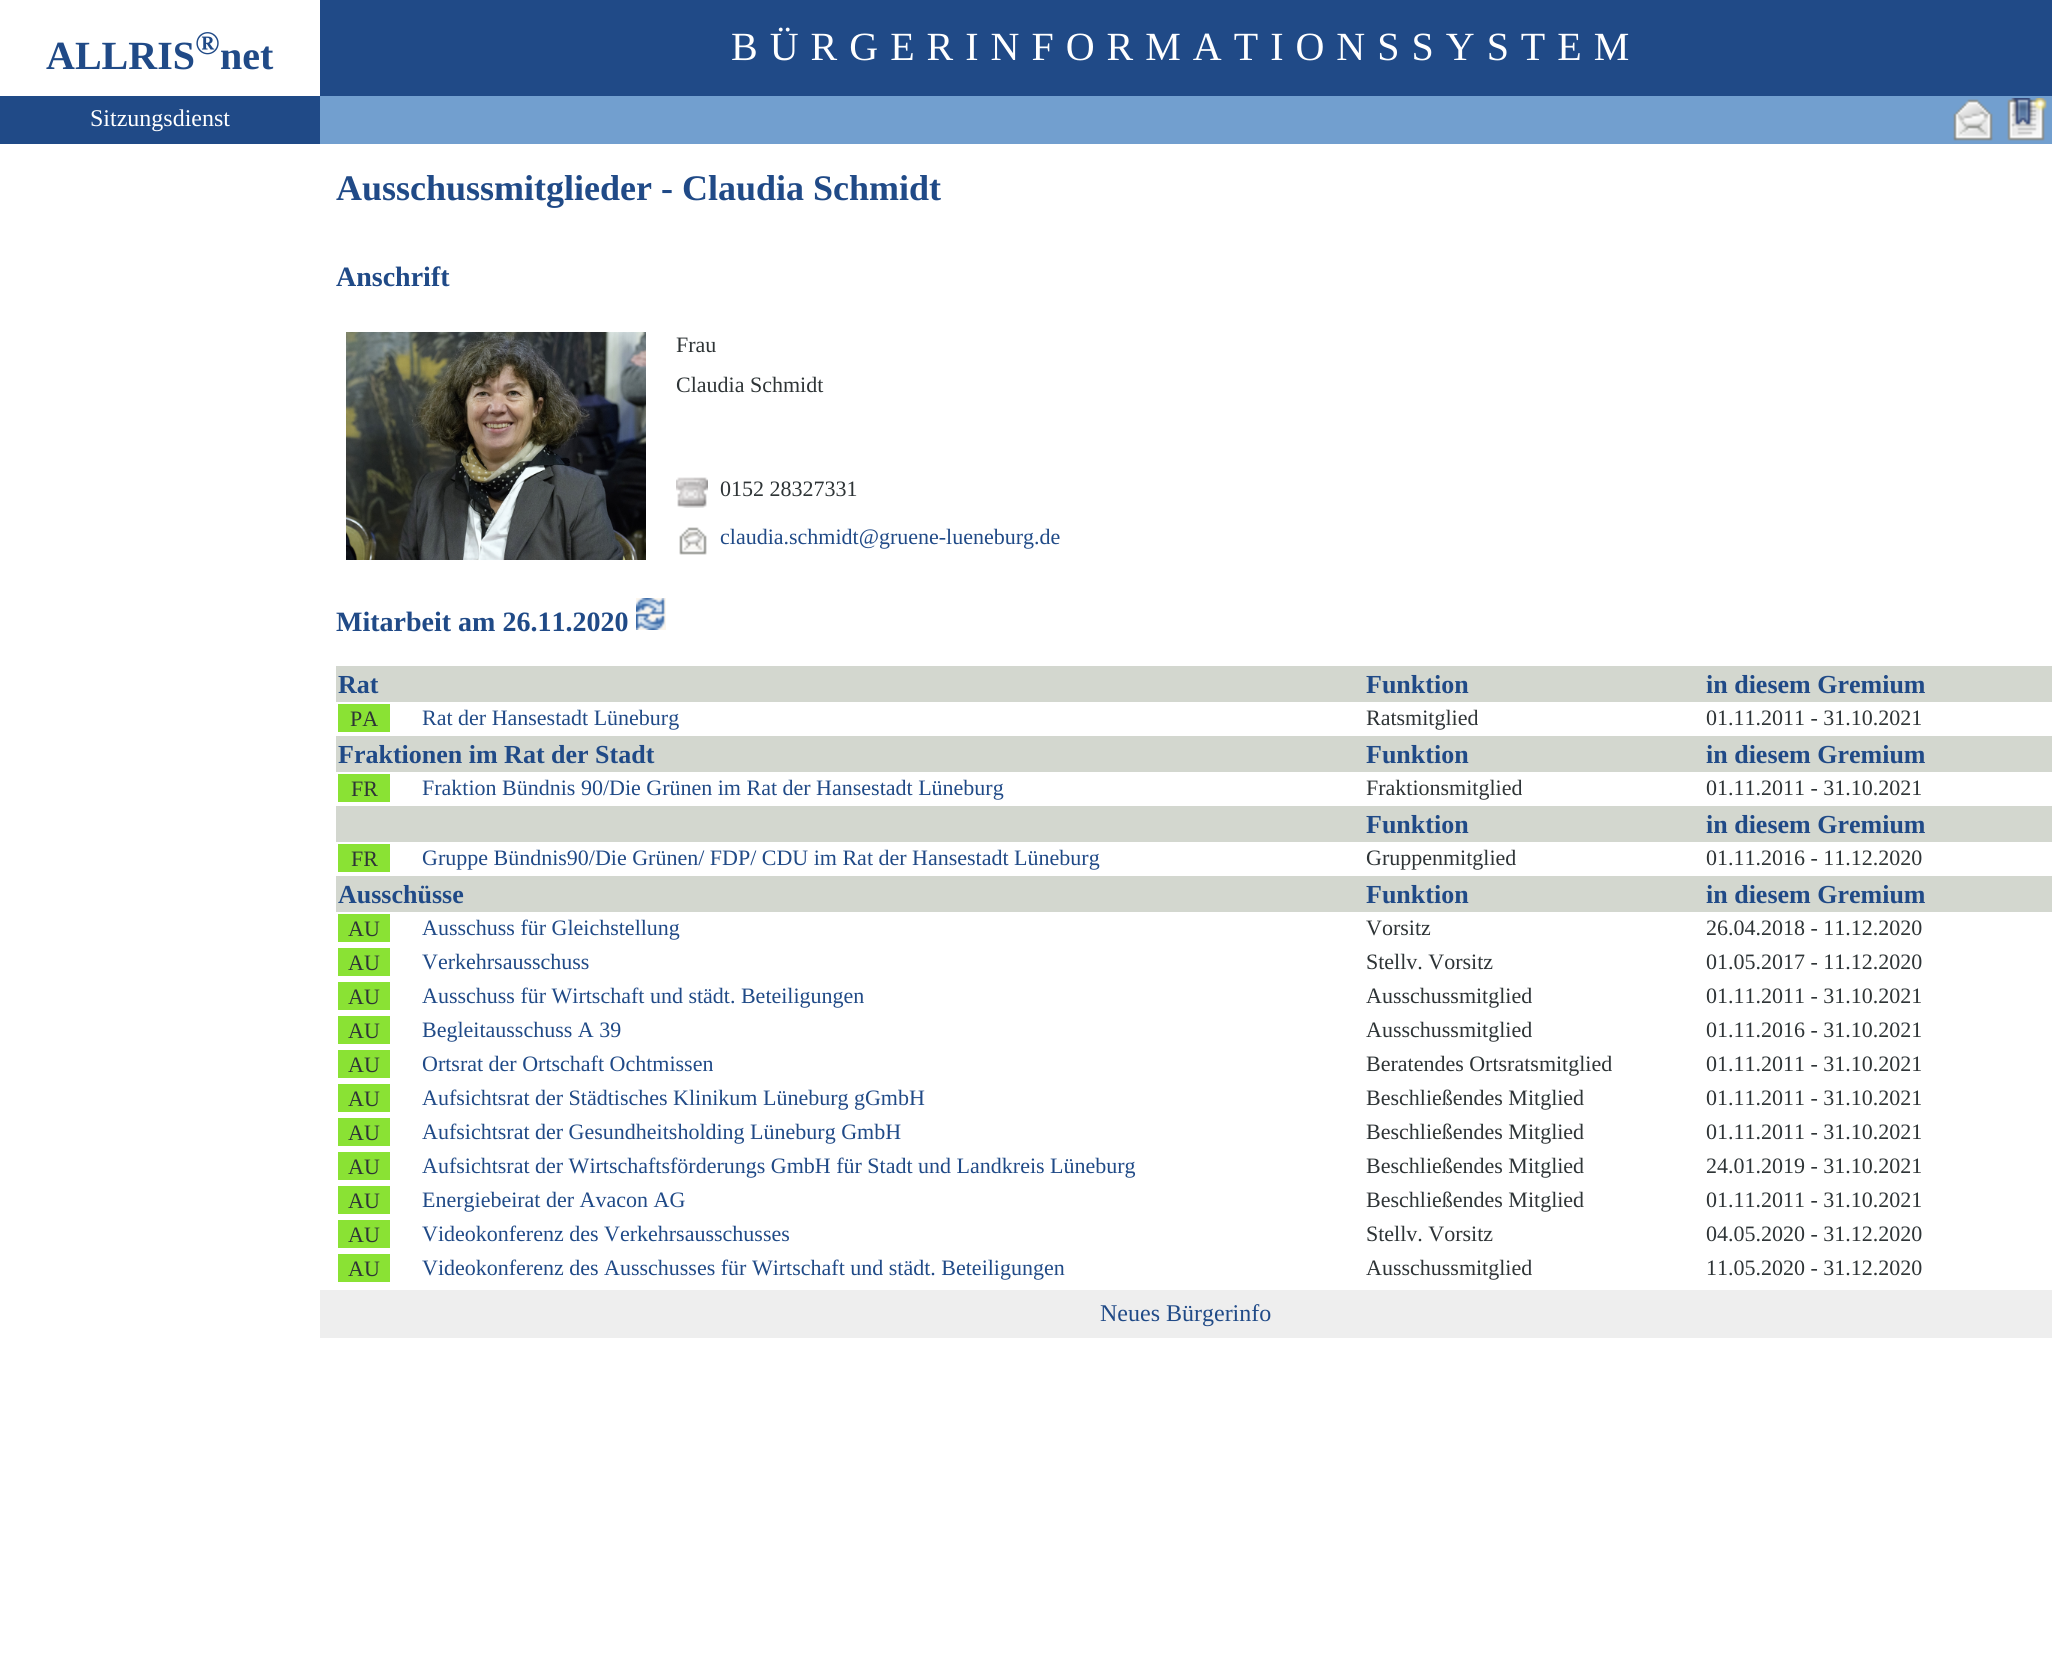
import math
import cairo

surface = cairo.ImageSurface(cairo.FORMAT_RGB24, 2052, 1680)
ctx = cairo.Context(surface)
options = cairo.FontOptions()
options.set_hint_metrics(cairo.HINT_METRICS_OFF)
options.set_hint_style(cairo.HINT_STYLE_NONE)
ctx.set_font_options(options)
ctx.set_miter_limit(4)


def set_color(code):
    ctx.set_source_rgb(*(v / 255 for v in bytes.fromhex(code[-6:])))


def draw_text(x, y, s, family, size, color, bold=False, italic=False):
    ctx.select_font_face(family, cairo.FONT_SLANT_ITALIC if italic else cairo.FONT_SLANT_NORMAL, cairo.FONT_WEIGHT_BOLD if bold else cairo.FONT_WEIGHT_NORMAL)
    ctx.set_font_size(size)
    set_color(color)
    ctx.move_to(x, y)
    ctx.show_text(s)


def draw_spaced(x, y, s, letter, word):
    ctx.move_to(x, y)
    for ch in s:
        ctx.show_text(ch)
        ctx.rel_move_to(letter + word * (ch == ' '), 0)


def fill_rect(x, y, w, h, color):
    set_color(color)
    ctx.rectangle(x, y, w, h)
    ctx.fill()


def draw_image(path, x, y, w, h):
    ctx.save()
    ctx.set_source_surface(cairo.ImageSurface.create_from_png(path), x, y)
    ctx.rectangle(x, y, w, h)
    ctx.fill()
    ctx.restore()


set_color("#ffffff")
ctx.paint()
draw_text(46, 69, "ALLRIS", "Liberation Serif", 40, "#204a87", bold=True)
draw_text(195, 54, "®", "Liberation Serif", 33, "#204a87", bold=True)
draw_text(220, 69, "net", "Liberation Serif", 40, "#204a87", bold=True)
fill_rect(0, 96, 320, 48, "#204a87")
draw_text(90, 126, "Sitzungsdienst", "Liberation Serif", 24, "#ffffff")
fill_rect(320, 0, 1732, 96, "#204a87")
ctx.set_font_size(40)
set_color("#ffffff")
draw_spaced(731, 60, "BÜRGERINFORMATIONSSYSTEM", 12, 0)
fill_rect(320, 96, 1732, 48, "#729fcf")
draw_image("assets/img1.png", 1953, 99, 40, 42)
draw_image("assets/img2.png", 2007, 98, 40, 43)
draw_text(336, 200, "Ausschussmitglieder - Claudia Schmidt", "Liberation Serif", 36, "#204a87", bold=True)
draw_text(336, 286, "Anschrift", "Liberation Serif", 28, "#204a87", bold=True)
draw_image("assets/img3.png", 346, 332, 300, 228)
draw_text(676, 352, "Frau", "Liberation Serif", 22, "#2e3436")
draw_text(676, 392, "Claudia Schmidt", "Liberation Serif", 22, "#2e3436")
draw_image("assets/img4.png", 676, 477, 32, 31)
draw_text(720, 496, "0152 28327331", "Liberation Serif", 22, "#2e3436")
draw_image("assets/img5.png", 679, 527, 28, 28)
draw_text(720, 544, "claudia.schmidt@gruene-lueneburg.de", "Liberation Serif", 22, "#204a87")
draw_text(336, 631, "Mitarbeit am 26.11.2020", "Liberation Serif", 28, "#204a87", bold=True)
fill_rect(636, 598, 30, 32, "#fcf6ed")
draw_image("assets/img6.png", 636, 598, 29, 32)
fill_rect(336, 666, 1716, 36, "#d3d7cf")
draw_text(338, 693, "Rat", "Liberation Serif", 26, "#204a87", bold=True)
draw_text(1366, 693, "Funktion", "Liberation Serif", 26, "#204a87", bold=True)
draw_text(1706, 693, "in diesem Gremium", "Liberation Serif", 26, "#204a87", bold=True)
fill_rect(338, 704, 52, 28, "#8ae234")
draw_text(350, 726, "PA", "Liberation Serif", 22, "#2e3436")
draw_text(422, 725, "Rat der Hansestadt Lüneburg", "Liberation Serif", 22, "#204a87")
draw_text(1366, 725, "Ratsmitglied", "Liberation Serif", 22, "#2e3436")
draw_text(1706, 725, "01.11.2011 - 31.10.2021", "Liberation Serif", 22, "#2e3436")
fill_rect(336, 736, 1716, 36, "#d3d7cf")
draw_text(338, 763, "Fraktionen im Rat der Stadt", "Liberation Serif", 26, "#204a87", bold=True)
draw_text(1366, 763, "Funktion", "Liberation Serif", 26, "#204a87", bold=True)
draw_text(1706, 763, "in diesem Gremium", "Liberation Serif", 26, "#204a87", bold=True)
fill_rect(338, 774, 52, 28, "#8ae234")
draw_text(351, 796, "FR", "Liberation Serif", 22, "#2e3436")
draw_text(422, 795, "Fraktion Bündnis 90/Die Grünen im Rat der Hansestadt Lüneburg", "Liberation Serif", 22, "#204a87")
draw_text(1366, 795, "Fraktionsmitglied", "Liberation Serif", 22, "#2e3436")
draw_text(1706, 795, "01.11.2011 - 31.10.2021", "Liberation Serif", 22, "#2e3436")
fill_rect(336, 806, 1716, 36, "#d3d7cf")
draw_text(1366, 833, "Funktion", "Liberation Serif", 26, "#204a87", bold=True)
draw_text(1706, 833, "in diesem Gremium", "Liberation Serif", 26, "#204a87", bold=True)
fill_rect(338, 844, 52, 28, "#8ae234")
draw_text(351, 866, "FR", "Liberation Serif", 22, "#2e3436")
draw_text(422, 865, "Gruppe Bündnis90/Die Grünen/ FDP/ CDU im Rat der Hansestadt Lüneburg", "Liberation Serif", 22, "#204a87")
draw_text(1366, 865, "Gruppenmitglied", "Liberation Serif", 22, "#2e3436")
draw_text(1706, 865, "01.11.2016 - 11.12.2020", "Liberation Serif", 22, "#2e3436")
fill_rect(336, 876, 1716, 36, "#d3d7cf")
draw_text(338, 903, "Ausschüsse", "Liberation Serif", 26, "#204a87", bold=True)
draw_text(1366, 903, "Funktion", "Liberation Serif", 26, "#204a87", bold=True)
draw_text(1706, 903, "in diesem Gremium", "Liberation Serif", 26, "#204a87", bold=True)
fill_rect(338, 914, 52, 28, "#8ae234")
draw_text(348, 936, "AU", "Liberation Serif", 22, "#2e3436")
draw_text(422, 935, "Ausschuss für Gleichstellung", "Liberation Serif", 22, "#204a87")
draw_text(1366, 935, "Vorsitz", "Liberation Serif", 22, "#2e3436")
draw_text(1706, 935, "26.04.2018 - 11.12.2020", "Liberation Serif", 22, "#2e3436")
fill_rect(338, 948, 52, 28, "#8ae234")
draw_text(348, 970, "AU", "Liberation Serif", 22, "#2e3436")
draw_text(422, 969, "Verkehrsausschuss", "Liberation Serif", 22, "#204a87")
draw_text(1366, 969, "Stellv. Vorsitz", "Liberation Serif", 22, "#2e3436")
draw_text(1706, 969, "01.05.2017 - 11.12.2020", "Liberation Serif", 22, "#2e3436")
fill_rect(338, 982, 52, 28, "#8ae234")
draw_text(348, 1004, "AU", "Liberation Serif", 22, "#2e3436")
draw_text(422, 1003, "Ausschuss für Wirtschaft und städt. Beteiligungen", "Liberation Serif", 22, "#204a87")
draw_text(1366, 1003, "Ausschussmitglied", "Liberation Serif", 22, "#2e3436")
draw_text(1706, 1003, "01.11.2011 - 31.10.2021", "Liberation Serif", 22, "#2e3436")
fill_rect(338, 1016, 52, 28, "#8ae234")
draw_text(348, 1038, "AU", "Liberation Serif", 22, "#2e3436")
draw_text(422, 1037, "Begleitausschuss A 39", "Liberation Serif", 22, "#204a87")
draw_text(1366, 1037, "Ausschussmitglied", "Liberation Serif", 22, "#2e3436")
draw_text(1706, 1037, "01.11.2016 - 31.10.2021", "Liberation Serif", 22, "#2e3436")
fill_rect(338, 1050, 52, 28, "#8ae234")
draw_text(348, 1072, "AU", "Liberation Serif", 22, "#2e3436")
draw_text(422, 1071, "Ortsrat der Ortschaft Ochtmissen", "Liberation Serif", 22, "#204a87")
draw_text(1366, 1071, "Beratendes Ortsratsmitglied", "Liberation Serif", 22, "#2e3436")
draw_text(1706, 1071, "01.11.2011 - 31.10.2021", "Liberation Serif", 22, "#2e3436")
fill_rect(338, 1084, 52, 28, "#8ae234")
draw_text(348, 1106, "AU", "Liberation Serif", 22, "#2e3436")
draw_text(422, 1105, "Aufsichtsrat der Städtisches Klinikum Lüneburg gGmbH", "Liberation Serif", 22, "#204a87")
draw_text(1366, 1105, "Beschließendes Mitglied", "Liberation Serif", 22, "#2e3436")
draw_text(1706, 1105, "01.11.2011 - 31.10.2021", "Liberation Serif", 22, "#2e3436")
fill_rect(338, 1118, 52, 28, "#8ae234")
draw_text(348, 1140, "AU", "Liberation Serif", 22, "#2e3436")
draw_text(422, 1139, "Aufsichtsrat der Gesundheitsholding Lüneburg GmbH", "Liberation Serif", 22, "#204a87")
draw_text(1366, 1139, "Beschließendes Mitglied", "Liberation Serif", 22, "#2e3436")
draw_text(1706, 1139, "01.11.2011 - 31.10.2021", "Liberation Serif", 22, "#2e3436")
fill_rect(338, 1152, 52, 28, "#8ae234")
draw_text(348, 1174, "AU", "Liberation Serif", 22, "#2e3436")
draw_text(422, 1173, "Aufsichtsrat der Wirtschaftsförderungs GmbH für Stadt und Landkreis Lüneburg", "Liberation Serif", 22, "#204a87")
draw_text(1366, 1173, "Beschließendes Mitglied", "Liberation Serif", 22, "#2e3436")
draw_text(1706, 1173, "24.01.2019 - 31.10.2021", "Liberation Serif", 22, "#2e3436")
fill_rect(338, 1186, 52, 28, "#8ae234")
draw_text(348, 1208, "AU", "Liberation Serif", 22, "#2e3436")
draw_text(422, 1207, "Energiebeirat der Avacon AG", "Liberation Serif", 22, "#204a87")
draw_text(1366, 1207, "Beschließendes Mitglied", "Liberation Serif", 22, "#2e3436")
draw_text(1706, 1207, "01.11.2011 - 31.10.2021", "Liberation Serif", 22, "#2e3436")
fill_rect(338, 1220, 52, 28, "#8ae234")
draw_text(348, 1242, "AU", "Liberation Serif", 22, "#2e3436")
draw_text(422, 1241, "Videokonferenz des Verkehrsausschusses", "Liberation Serif", 22, "#204a87")
draw_text(1366, 1241, "Stellv. Vorsitz", "Liberation Serif", 22, "#2e3436")
draw_text(1706, 1241, "04.05.2020 - 31.12.2020", "Liberation Serif", 22, "#2e3436")
fill_rect(338, 1254, 52, 28, "#8ae234")
draw_text(348, 1276, "AU", "Liberation Serif", 22, "#2e3436")
draw_text(422, 1275, "Videokonferenz des Ausschusses für Wirtschaft und städt. Beteiligungen", "Liberation Serif", 22, "#204a87")
draw_text(1366, 1275, "Ausschussmitglied", "Liberation Serif", 22, "#2e3436")
draw_text(1706, 1275, "11.05.2020 - 31.12.2020", "Liberation Serif", 22, "#2e3436")
fill_rect(320, 1290, 1732, 48, "#eeeeee")
draw_text(1100, 1321, "Neues Bürgerinfo", "Liberation Serif", 24, "#204a87")
surface.write_to_png("output.png")
